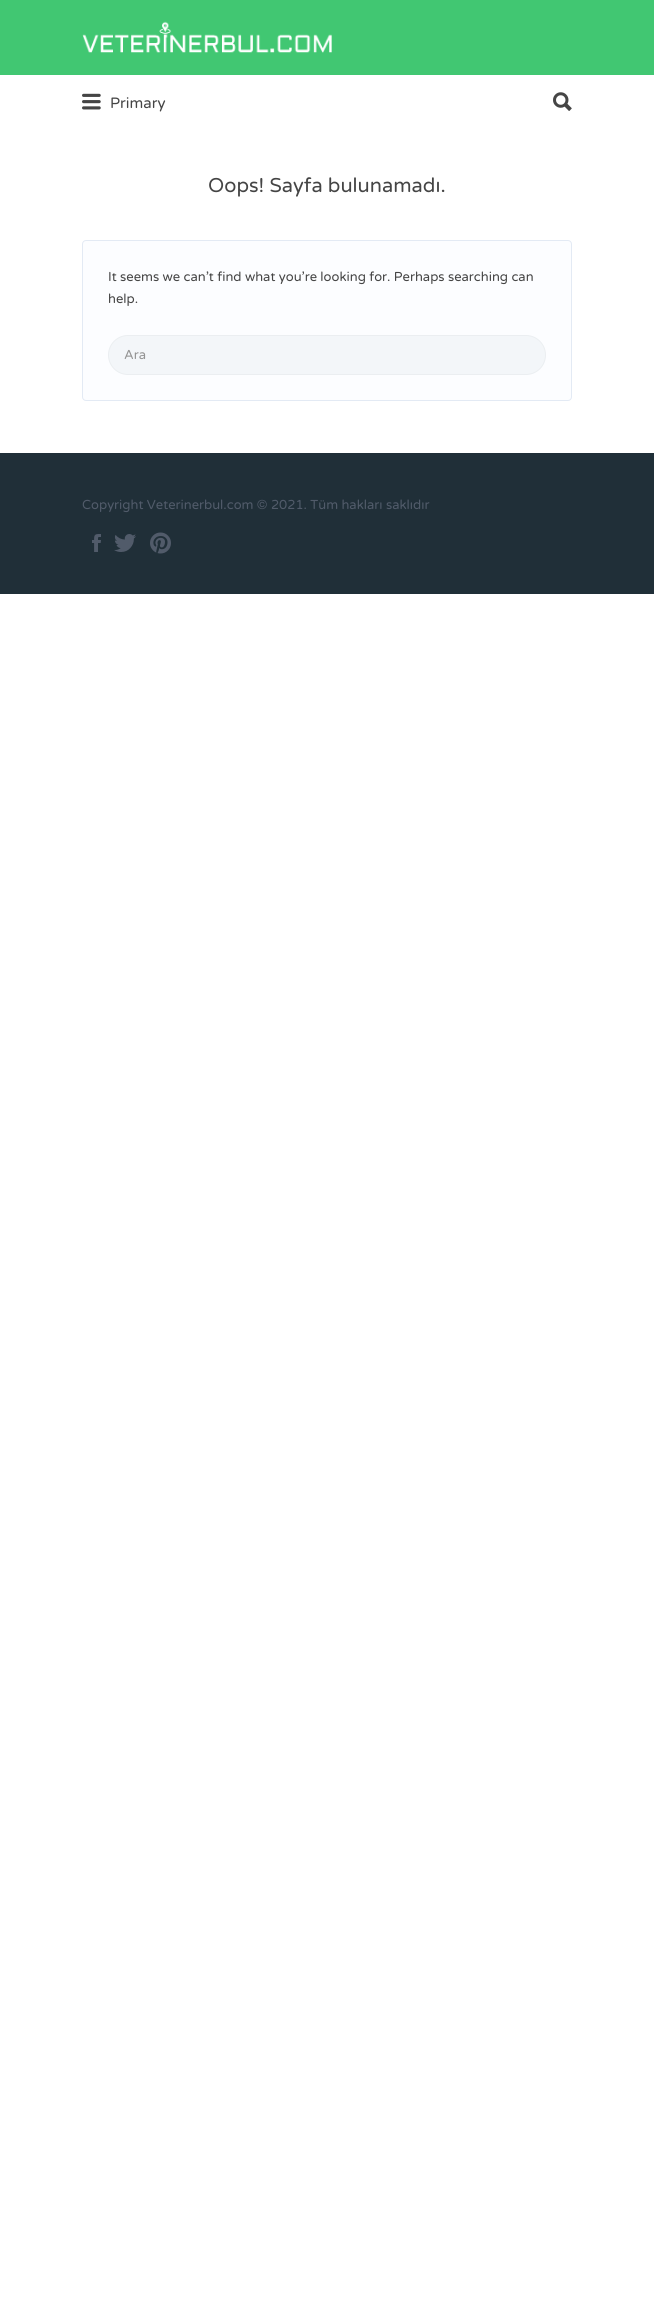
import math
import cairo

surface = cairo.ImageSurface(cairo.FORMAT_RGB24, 654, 2320)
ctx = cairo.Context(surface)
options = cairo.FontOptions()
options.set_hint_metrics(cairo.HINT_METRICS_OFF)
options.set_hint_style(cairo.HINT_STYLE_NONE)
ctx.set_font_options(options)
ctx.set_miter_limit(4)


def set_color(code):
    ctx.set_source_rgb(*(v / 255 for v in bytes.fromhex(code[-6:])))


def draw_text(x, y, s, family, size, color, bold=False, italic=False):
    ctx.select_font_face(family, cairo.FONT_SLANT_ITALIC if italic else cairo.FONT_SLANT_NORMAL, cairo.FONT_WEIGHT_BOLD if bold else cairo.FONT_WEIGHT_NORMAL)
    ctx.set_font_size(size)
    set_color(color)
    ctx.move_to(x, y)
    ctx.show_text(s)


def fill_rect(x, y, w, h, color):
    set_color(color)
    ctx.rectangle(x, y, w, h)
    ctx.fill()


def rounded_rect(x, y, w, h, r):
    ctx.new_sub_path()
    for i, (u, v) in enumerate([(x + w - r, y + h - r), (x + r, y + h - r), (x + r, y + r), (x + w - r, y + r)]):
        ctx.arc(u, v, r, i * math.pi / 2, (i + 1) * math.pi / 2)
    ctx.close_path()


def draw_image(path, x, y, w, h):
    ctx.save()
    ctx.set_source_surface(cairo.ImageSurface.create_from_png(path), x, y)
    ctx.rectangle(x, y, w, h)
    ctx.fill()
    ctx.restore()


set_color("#ffffff")
ctx.paint()
fill_rect(0, 0, 654, 75, "#41c772")
draw_image("assets/img1.png", 82, 21, 250, 32)
draw_image("assets/img2.png", 82, 93, 19, 17)
draw_text(110, 108, "Primary", "Varela Round", 15, "#454545")
draw_image("assets/img3.png", 553, 92, 19, 19)
draw_text(208, 192, "Oops! Sayfa bulunamadı.", "Varela Round", 20, "#454545")
set_color("#fcfdff")
rounded_rect(82.5, 240.5, 489, 160, 3.5)
ctx.fill_preserve()
set_color("#e3eaf4")
ctx.set_line_width(1)
ctx.stroke()
draw_text(108, 281, "It seems we can’t find what you’re looking for. Perhaps searching can", "Varela Round", 13, "#454545")
draw_text(108, 303, "help.", "Varela Round", 13, "#454545")
set_color("#f3f6f9")
rounded_rect(108.5, 335.5, 437, 39, 19.5)
ctx.fill_preserve()
set_color("#ebeef1")
ctx.stroke()
draw_text(124, 359, "Ara", "Varela Round", 13, "#939393")
fill_rect(0, 453, 654, 141, "#202f38")
draw_text(82, 509, "Copyright Veterinerbul.com © 2021. Tüm hakları saklıdır", "Varela Round", 13, "#515b6a")
draw_image("assets/img4.png", 92, 534, 9, 18)
draw_image("assets/img5.png", 114, 534, 22, 18)
draw_image("assets/img6.png", 150, 532, 21, 22)
surface.write_to_png("output.png")
